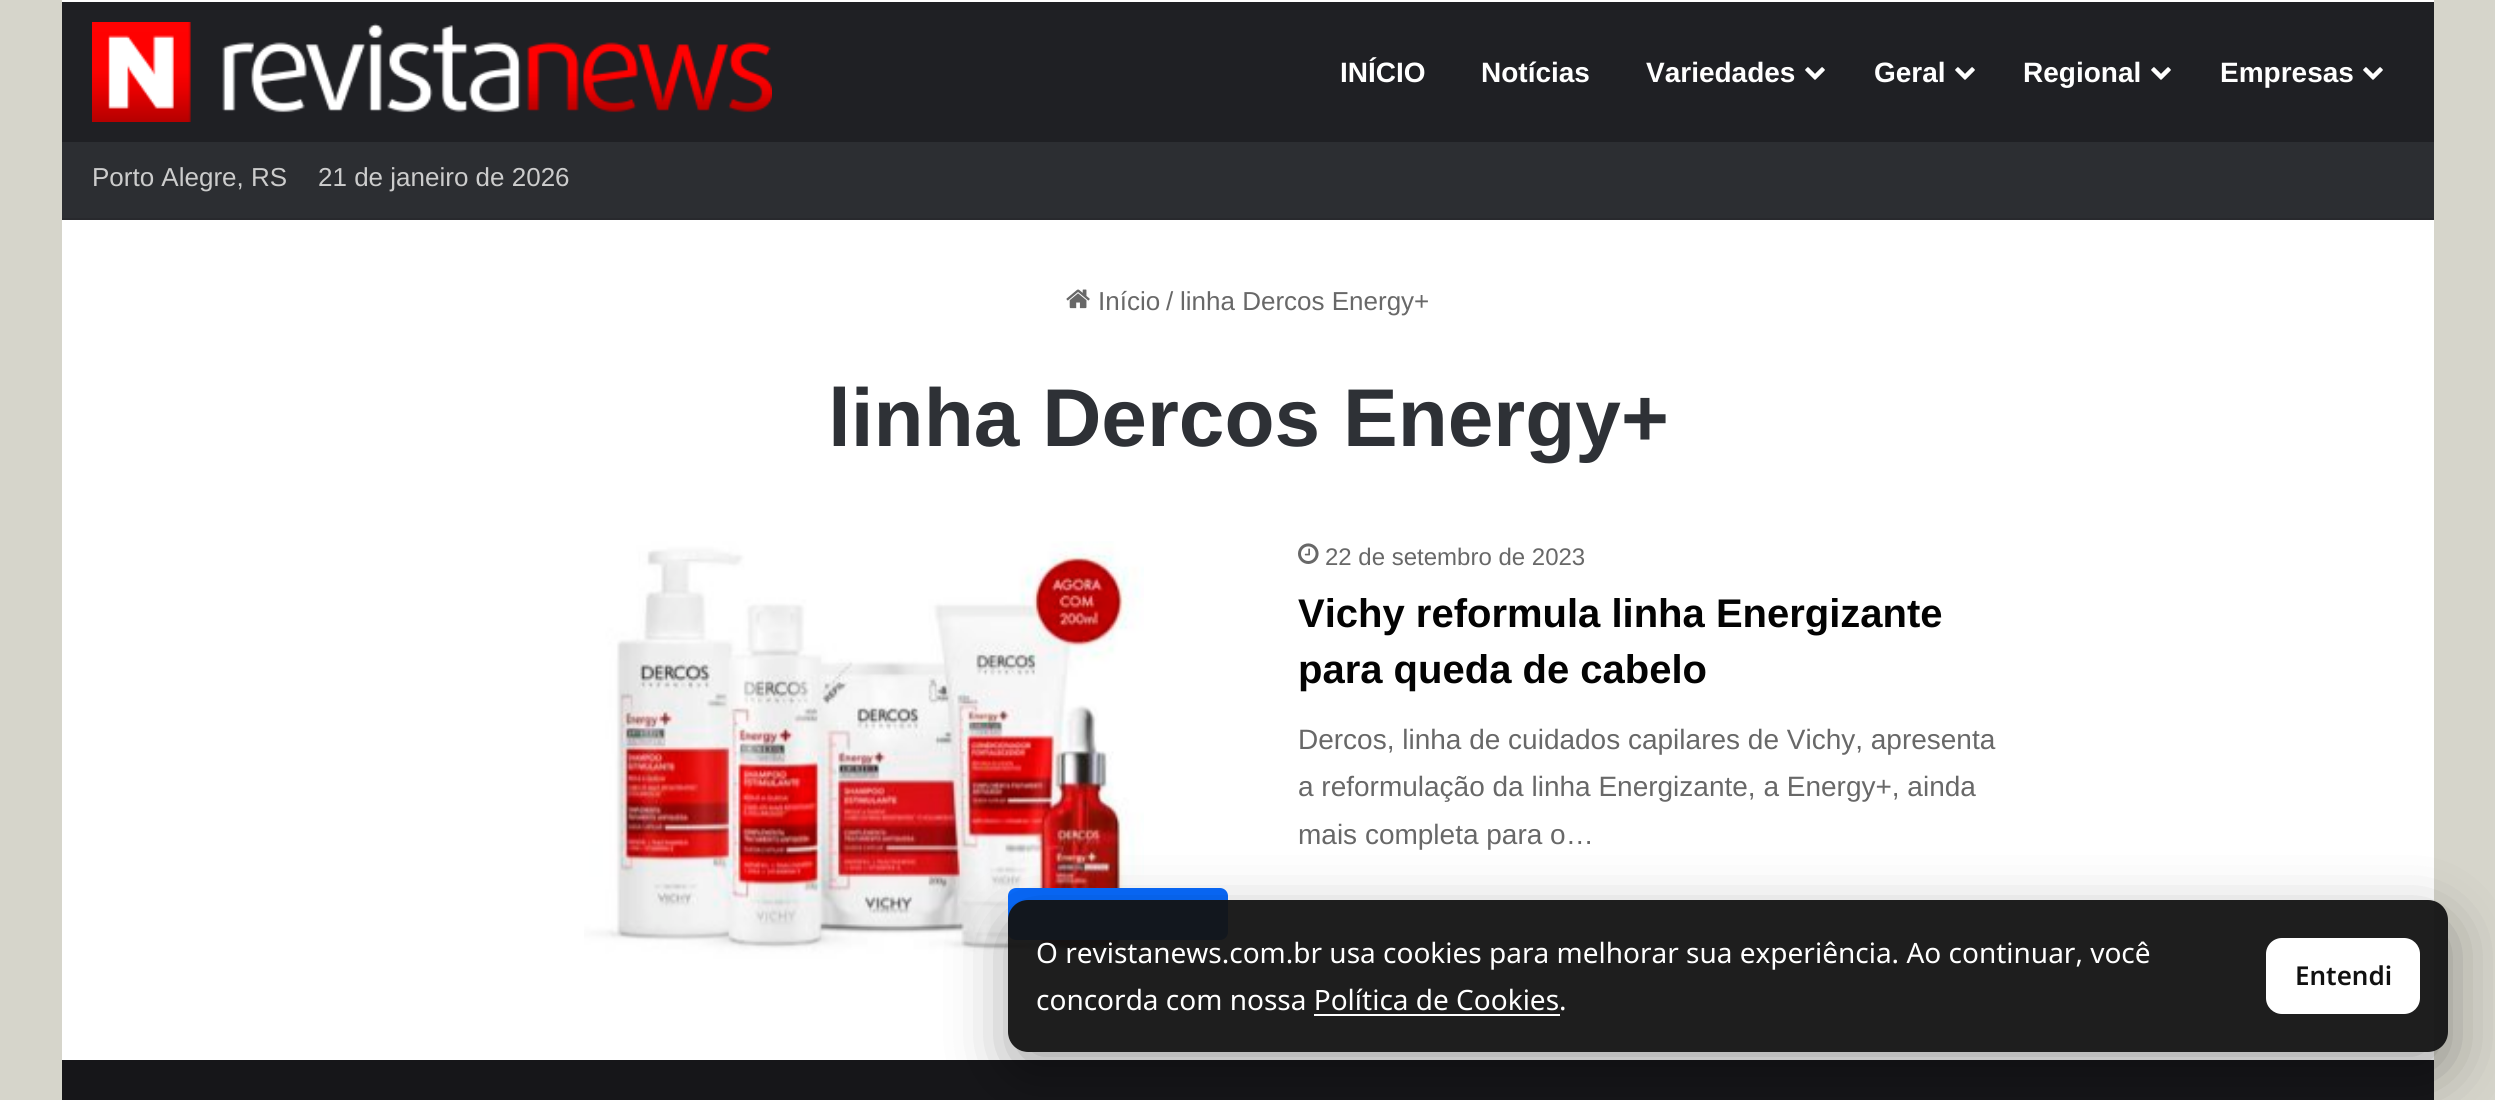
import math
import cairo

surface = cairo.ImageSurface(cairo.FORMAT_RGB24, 2495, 1100)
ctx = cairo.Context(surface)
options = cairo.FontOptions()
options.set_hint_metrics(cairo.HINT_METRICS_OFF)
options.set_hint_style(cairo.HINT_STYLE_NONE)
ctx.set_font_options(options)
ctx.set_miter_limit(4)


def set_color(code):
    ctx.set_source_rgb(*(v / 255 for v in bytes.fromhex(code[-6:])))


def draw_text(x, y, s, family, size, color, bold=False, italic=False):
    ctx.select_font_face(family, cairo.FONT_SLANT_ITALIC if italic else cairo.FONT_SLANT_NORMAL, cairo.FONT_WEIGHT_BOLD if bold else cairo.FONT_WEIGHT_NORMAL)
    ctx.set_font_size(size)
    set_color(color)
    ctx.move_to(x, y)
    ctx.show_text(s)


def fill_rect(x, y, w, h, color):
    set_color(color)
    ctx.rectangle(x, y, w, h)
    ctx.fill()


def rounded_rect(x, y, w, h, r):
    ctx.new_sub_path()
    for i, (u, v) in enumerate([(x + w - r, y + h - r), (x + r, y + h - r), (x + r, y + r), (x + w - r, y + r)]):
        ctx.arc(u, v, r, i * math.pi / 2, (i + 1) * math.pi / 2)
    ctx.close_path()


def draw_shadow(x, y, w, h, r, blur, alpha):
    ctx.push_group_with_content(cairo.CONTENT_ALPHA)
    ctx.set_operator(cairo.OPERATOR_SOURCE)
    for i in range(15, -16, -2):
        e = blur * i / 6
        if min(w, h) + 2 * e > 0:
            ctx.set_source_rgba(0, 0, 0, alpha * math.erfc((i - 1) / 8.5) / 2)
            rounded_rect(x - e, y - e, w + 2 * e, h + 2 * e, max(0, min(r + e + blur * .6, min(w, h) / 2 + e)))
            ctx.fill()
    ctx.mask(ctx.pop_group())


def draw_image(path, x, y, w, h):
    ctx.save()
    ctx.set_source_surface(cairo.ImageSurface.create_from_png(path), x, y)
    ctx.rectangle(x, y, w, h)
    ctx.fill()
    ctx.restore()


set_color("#d6d5cb")
ctx.paint()
fill_rect(62, 0, 2372, 1060, "#ffffff")
fill_rect(62, 2, 2372, 140, "#1f2024")
draw_image("assets/img1.png", 92, 22, 680, 100)
draw_text(1340, 82, "INÍCIO", "Liberation Sans", 28, "#ffffff", bold=True)
draw_text(1481, 82, "Notícias", "Liberation Sans", 28, "#ffffff", bold=True)
draw_text(1646, 82, "Variedades", "Liberation Sans", 28, "#ffffff", bold=True)
draw_image("assets/img2.png", 1805, 67, 20, 13)
draw_text(1874, 82, "Geral", "Liberation Sans", 28, "#ffffff", bold=True)
draw_image("assets/img2.png", 1955, 67, 20, 13)
draw_text(2023, 82, "Regional", "Liberation Sans", 28, "#ffffff", bold=True)
draw_image("assets/img2.png", 2151, 67, 20, 13)
draw_text(2220, 82, "Empresas", "Liberation Sans", 28, "#ffffff", bold=True)
draw_image("assets/img2.png", 2363, 67, 20, 13)
fill_rect(62, 142, 2372, 76, "#2c2e32")
fill_rect(62, 218, 2372, 2, "#28292d")
draw_text(92, 186, "Porto Alegre, RS", "Liberation Sans", 26, "#cccccc")
draw_text(318, 186, "21 de janeiro de 2026", "Liberation Sans", 26, "#cccccc")
draw_image("assets/img3.png", 1066, 289, 24, 20)
draw_text(1098, 310, "Início", "Liberation Sans", 26, "#686868")
draw_text(1166, 310, "/", "Liberation Sans", 26, "#686868")
draw_text(1180, 310, "linha Dercos Energy+", "Liberation Sans", 26, "#686868")
draw_text(828, 446, "linha Dercos Energy+", "Liberation Sans", 82, "#2e3136", bold=True)
draw_image("assets/img4.png", 584, 541, 560, 418)
set_color("#086bff")
rounded_rect(1008, 888, 220, 52, 8)
ctx.fill()
draw_image("assets/img5.png", 1298, 543, 21, 21)
draw_text(1325, 565, "22 de setembro de 2023", "Liberation Sans", 24, "#686868")
draw_text(1298, 627, "Vichy reformula linha Energizante", "Liberation Sans", 40, "#030303", bold=True)
draw_text(1298, 683, "para queda de cabelo", "Liberation Sans", 40, "#030303", bold=True)
draw_text(1298, 749, "Dercos, linha de cuidados capilares de Vichy, apresenta", "Liberation Sans", 28, "#686868")
draw_text(1298, 796, "a reformulação da linha Energizante, a Energy+, ainda", "Liberation Sans", 28, "#686868")
draw_text(1298, 844, "mais completa para o…", "Liberation Sans", 28, "#686868")
fill_rect(62, 1060, 2372, 40, "#161619")
ctx.save()
ctx.set_fill_rule(cairo.FILL_RULE_EVEN_ODD)
ctx.new_path()
ctx.move_to(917, 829)
ctx.line_to(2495, 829)
ctx.line_to(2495, 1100)
ctx.line_to(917, 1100)
ctx.close_path()
ctx.move_to(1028, 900)
ctx.line_to(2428, 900)
ctx.curve_to(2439, 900, 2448, 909, 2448, 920)
ctx.line_to(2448, 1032)
ctx.curve_to(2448, 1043, 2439, 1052, 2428, 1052)
ctx.line_to(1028, 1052)
ctx.curve_to(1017, 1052, 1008, 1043, 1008, 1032)
ctx.line_to(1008, 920)
ctx.curve_to(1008, 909, 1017, 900, 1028, 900)
ctx.close_path()
ctx.clip()
set_color("#000000")
draw_shadow(1008, 920, 1440, 152, 20, 30, 0.35)
ctx.restore()
ctx.set_source_rgba(0.078, 0.078, 0.078, 0.95)
rounded_rect(1008, 900, 1440, 152, 20)
ctx.fill()
draw_text(1036, 963, "O revistanews.com.br usa cookies para melhorar sua experiência. Ao continuar, você", "Noto Sans", 28, "#ffffff")
draw_text(1036, 1010, "concorda com nossa Política de Cookies.", "Noto Sans", 28, "#ffffff")
fill_rect(1314, 1014, 246, 2, "#ffffff")
rounded_rect(2266, 938, 154, 76, 16)
ctx.fill()
draw_text(2295, 985, "Entendi", "Noto Sans SemiBold", 26, "#111111")
surface.write_to_png("output.png")
